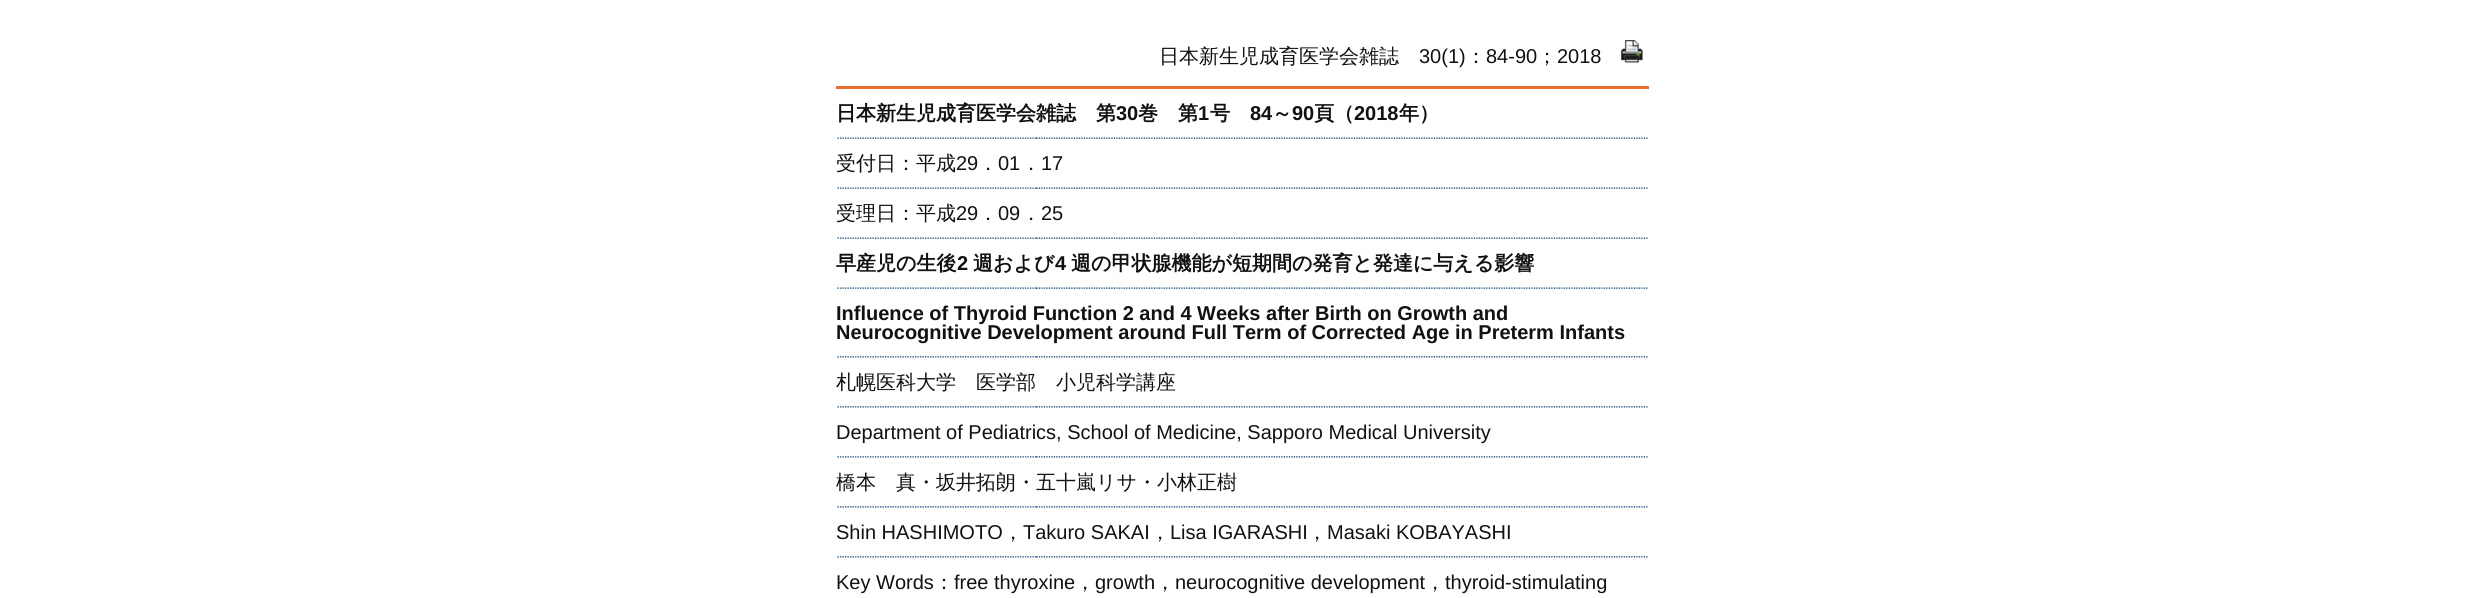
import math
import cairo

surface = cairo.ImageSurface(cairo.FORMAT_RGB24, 2484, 598)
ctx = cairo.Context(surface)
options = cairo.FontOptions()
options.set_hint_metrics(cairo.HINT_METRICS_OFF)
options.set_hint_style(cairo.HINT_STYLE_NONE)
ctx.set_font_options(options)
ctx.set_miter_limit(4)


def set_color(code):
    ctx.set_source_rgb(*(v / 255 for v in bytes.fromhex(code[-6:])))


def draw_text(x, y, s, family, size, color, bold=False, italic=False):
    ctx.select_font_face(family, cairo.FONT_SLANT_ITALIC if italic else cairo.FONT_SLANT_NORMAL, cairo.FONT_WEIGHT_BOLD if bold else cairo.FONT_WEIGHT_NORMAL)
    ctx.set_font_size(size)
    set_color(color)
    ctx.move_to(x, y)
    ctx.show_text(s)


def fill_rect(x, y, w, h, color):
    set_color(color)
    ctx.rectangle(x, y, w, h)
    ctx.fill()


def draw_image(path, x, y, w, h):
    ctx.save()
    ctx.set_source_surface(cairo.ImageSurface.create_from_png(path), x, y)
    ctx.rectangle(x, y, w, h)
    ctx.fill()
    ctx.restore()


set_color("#ffffff")
ctx.paint()
draw_text(1159, 63, "日本新生児成育医学会雑誌", "WenQuanYi Zen Hei Medium", 20, "#111111")
draw_text(1419, 63, "30(1)", "Liberation Sans", 20, "#111111")
draw_text(1466, 63, "：", "WenQuanYi Zen Hei Medium", 20, "#111111")
draw_text(1486, 63, "84-90", "Liberation Sans", 20, "#111111")
draw_text(1537, 63, "；", "WenQuanYi Zen Hei Medium", 20, "#111111")
draw_text(1557, 63, "2018", "Liberation Sans", 20, "#111111")
draw_image("assets/img1.png", 1621, 40, 22, 23)
fill_rect(836, 86, 813, 3, "#e86e2d")
draw_text(836, 120, "日本新生児成育医学会雑誌　第", "WenQuanYi Zen Hei", 20, "#111111", bold=True)
draw_text(1116, 120, "30", "Liberation Sans", 20, "#111111", bold=True)
draw_text(1138, 120, "巻　第", "WenQuanYi Zen Hei", 20, "#111111", bold=True)
draw_text(1198, 120, "1", "Liberation Sans", 20, "#111111", bold=True)
draw_text(1210, 120, "号", "WenQuanYi Zen Hei", 20, "#111111", bold=True)
draw_text(1250, 120, "84", "Liberation Sans", 20, "#111111", bold=True)
draw_text(1272, 120, "～", "WenQuanYi Zen Hei", 20, "#111111", bold=True)
draw_text(1292, 120, "90", "Liberation Sans", 20, "#111111", bold=True)
draw_text(1314, 120, "頁（", "WenQuanYi Zen Hei", 20, "#111111", bold=True)
draw_text(1354, 120, "2018", "Liberation Sans", 20, "#111111", bold=True)
draw_text(1399, 120, "年）", "WenQuanYi Zen Hei", 20, "#111111", bold=True)
draw_image("assets/img2.png", 837, 137, 811, 2)
draw_text(836, 170, "受付日：平成", "WenQuanYi Zen Hei Medium", 20, "#111111")
draw_text(956, 170, "29", "Liberation Sans", 20, "#111111")
draw_text(978, 170, "．", "WenQuanYi Zen Hei Medium", 20, "#111111")
draw_text(998, 170, "01", "Liberation Sans", 20, "#111111")
draw_text(1021, 170, "．", "WenQuanYi Zen Hei Medium", 20, "#111111")
draw_text(1041, 170, "17", "Liberation Sans", 20, "#111111")
draw_image("assets/img2.png", 837, 187, 811, 2)
draw_text(836, 220, "受理日：平成", "WenQuanYi Zen Hei Medium", 20, "#111111")
draw_text(956, 220, "29", "Liberation Sans", 20, "#111111")
draw_text(978, 220, "．", "WenQuanYi Zen Hei Medium", 20, "#111111")
draw_text(998, 220, "09", "Liberation Sans", 20, "#111111")
draw_text(1021, 220, "．", "WenQuanYi Zen Hei Medium", 20, "#111111")
draw_text(1041, 220, "25", "Liberation Sans", 20, "#111111")
draw_image("assets/img2.png", 837, 237, 811, 2)
draw_text(836, 270, "早産児の生後", "WenQuanYi Zen Hei", 20, "#111111", bold=True)
draw_text(957, 270, "2", "Liberation Sans", 20, "#111111", bold=True)
draw_text(973, 270, "週および", "WenQuanYi Zen Hei", 20, "#111111", bold=True)
draw_text(1055, 270, "4", "Liberation Sans", 20, "#111111", bold=True)
draw_text(1071, 270, "週の甲状腺機能が短期間の発育と発達に与える影響", "WenQuanYi Zen Hei", 20, "#111111", bold=True)
draw_image("assets/img2.png", 837, 287, 811, 2)
draw_text(836, 320, "Influence of Thyroid Function 2 and 4 Weeks after Birth on Growth and", "Liberation Sans", 20, "#111111", bold=True)
draw_text(836, 339, "Neurocognitive Development around Full Term of Corrected Age in Preterm Infants", "Liberation Sans", 20, "#111111", bold=True)
draw_image("assets/img3.png", 837, 356, 811, 2)
draw_text(836, 389, "札幌医科大学　医学部　小児科学講座", "WenQuanYi Zen Hei Medium", 20, "#111111")
draw_image("assets/img3.png", 837, 406, 811, 2)
draw_text(836, 439, "Department of Pediatrics, School of Medicine, Sapporo Medical University", "Liberation Sans", 20, "#111111")
draw_image("assets/img3.png", 837, 456, 811, 2)
draw_text(836, 489, "橋本　真・坂井拓朗・五十嵐リサ・小林正樹", "WenQuanYi Zen Hei Medium", 20, "#111111")
draw_image("assets/img3.png", 837, 506, 811, 2)
draw_text(836, 539, "Shin HASHIMOTO", "Liberation Sans", 20, "#111111")
draw_text(1003, 539, "，", "WenQuanYi Zen Hei Medium", 20, "#111111")
draw_text(1023, 539, "Takuro SAKAI", "Liberation Sans", 20, "#111111")
draw_text(1150, 539, "，", "WenQuanYi Zen Hei Medium", 20, "#111111")
draw_text(1170, 539, "Lisa IGARASHI", "Liberation Sans", 20, "#111111")
draw_text(1307, 539, "，", "WenQuanYi Zen Hei Medium", 20, "#111111")
draw_text(1327, 539, "Masaki KOBAYASHI", "Liberation Sans", 20, "#111111")
draw_image("assets/img3.png", 837, 556, 811, 2)
draw_text(836, 589, "Key Words", "Liberation Sans", 20, "#111111")
draw_text(934, 589, "：", "WenQuanYi Zen Hei Medium", 20, "#111111")
draw_text(954, 589, "free thyroxine", "Liberation Sans", 20, "#111111")
draw_text(1075, 589, "，", "WenQuanYi Zen Hei Medium", 20, "#111111")
draw_text(1095, 589, "growth", "Liberation Sans", 20, "#111111")
draw_text(1155, 589, "，", "WenQuanYi Zen Hei Medium", 20, "#111111")
draw_text(1175, 589, "neurocognitive development", "Liberation Sans", 20, "#111111")
draw_text(1425, 589, "，", "WenQuanYi Zen Hei Medium", 20, "#111111")
draw_text(1445, 589, "thyroid-stimulating", "Liberation Sans", 20, "#111111")
surface.write_to_png("output.png")
